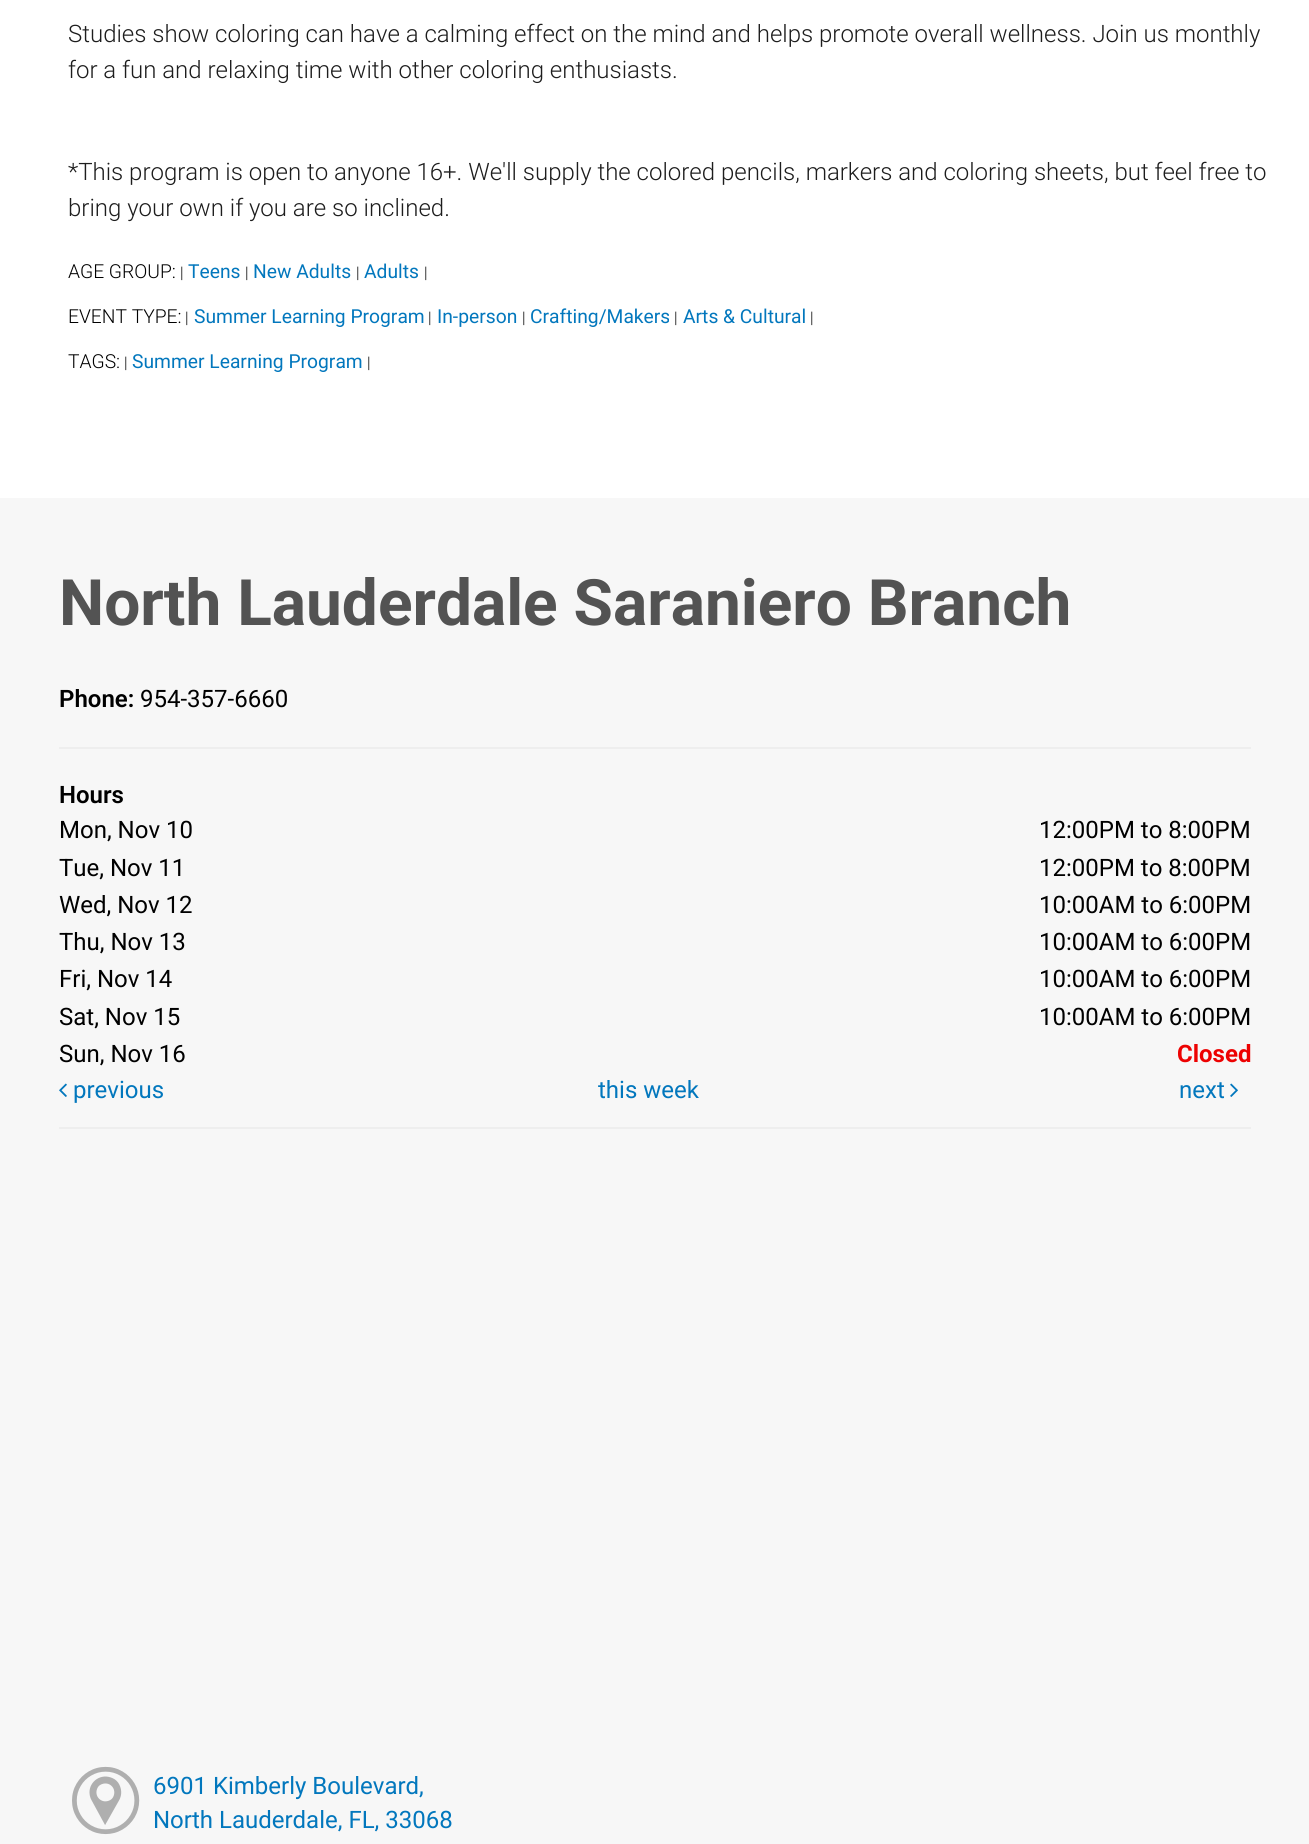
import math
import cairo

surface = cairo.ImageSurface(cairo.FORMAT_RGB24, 1309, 1844)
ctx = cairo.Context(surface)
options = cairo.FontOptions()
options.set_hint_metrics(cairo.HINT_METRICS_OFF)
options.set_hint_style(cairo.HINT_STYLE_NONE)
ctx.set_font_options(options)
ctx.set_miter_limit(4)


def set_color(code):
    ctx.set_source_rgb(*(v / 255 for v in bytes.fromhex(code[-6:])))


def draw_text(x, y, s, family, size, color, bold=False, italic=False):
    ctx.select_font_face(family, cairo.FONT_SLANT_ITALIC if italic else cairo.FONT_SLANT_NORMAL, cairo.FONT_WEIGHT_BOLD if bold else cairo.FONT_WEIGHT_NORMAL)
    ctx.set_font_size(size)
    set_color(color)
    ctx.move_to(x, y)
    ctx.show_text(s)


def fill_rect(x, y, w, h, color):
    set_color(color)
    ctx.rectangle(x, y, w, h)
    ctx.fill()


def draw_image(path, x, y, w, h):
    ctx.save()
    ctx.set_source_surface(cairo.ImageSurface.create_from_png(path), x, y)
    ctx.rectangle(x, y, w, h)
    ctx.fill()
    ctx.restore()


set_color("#ffffff")
ctx.paint()
draw_text(68, 42, "Studies show coloring can have a calming effect on the mind and helps promote overall wellness. Join us monthly", "Roboto Light", 24, "#1d1d1d")
draw_text(68, 78, "for a fun and relaxing time with other coloring enthusiasts.", "Roboto Light", 24, "#1d1d1d")
draw_text(68, 180, "*This program is open to anyone 16+. We'll supply the colored pencils, markers and coloring sheets, but feel free to", "Roboto Light", 24, "#1d1d1d")
draw_text(68, 216, "bring your own if you are so inclined.", "Roboto Light", 24, "#1d1d1d")
draw_text(68, 278, "AGE GROUP:", "Roboto Light", 19.25, "#000000")
draw_text(180, 278, "|", "Roboto Light", 16, "#000000")
draw_text(188, 278, "Teens", "Roboto", 19.25, "#0277bd")
draw_text(245, 278, "|", "Roboto Light", 16, "#000000")
draw_text(253, 278, "New Adults", "Roboto", 19.25, "#0277bd")
draw_text(356, 278, "|", "Roboto Light", 16, "#000000")
draw_text(364, 278, "Adults", "Roboto", 19.25, "#0277bd")
draw_text(424, 278, "|", "Roboto Light", 16, "#000000")
draw_text(68, 323, "EVENT TYPE:", "Roboto Light", 19.25, "#000000")
draw_text(185, 323, "|", "Roboto Light", 16, "#000000")
draw_text(194, 323, "Summer Learning Program", "Roboto", 19.25, "#0277bd")
draw_text(428, 323, "|", "Roboto Light", 16, "#000000")
draw_text(437, 323, "In-person", "Roboto", 19.25, "#0277bd")
draw_text(522, 323, "|", "Roboto Light", 16, "#000000")
draw_text(530, 323, "Crafting/Makers", "Roboto", 19.25, "#0277bd")
draw_text(674, 323, "|", "Roboto Light", 16, "#000000")
draw_text(683, 323, "Arts & Cultural", "Roboto", 19.25, "#0277bd")
draw_text(810, 323, "|", "Roboto Light", 16, "#000000")
draw_text(68, 368, "TAGS:", "Roboto Light", 19.25, "#000000")
draw_text(124, 368, "|", "Roboto Light", 16, "#000000")
draw_text(132, 368, "Summer Learning Program", "Roboto", 19.25, "#0277bd")
draw_text(367, 368, "|", "Roboto Light", 16, "#000000")
fill_rect(0, 498, 1309, 1346, "#f7f7f7")
draw_text(59, 625, "North Lauderdale Saraniero Branch", "Roboto", 64, "#535353", bold=True)
draw_text(59, 707, "Phone:", "Roboto SemiBold", 24, "#000000")
draw_text(140, 707, "954-357-6660", "Roboto", 24, "#000000")
fill_rect(59, 747, 1192, 2, "#eeeeee")
draw_text(59, 803, "Hours", "Roboto SemiBold", 24, "#000000")
draw_text(59, 838, "Mon, Nov 10", "Roboto", 24, "#000000")
draw_text(1039, 838, "12:00PM to 8:00PM", "Roboto", 24, "#000000")
draw_text(59, 876, "Tue, Nov 11", "Roboto", 24, "#000000")
draw_text(1039, 876, "12:00PM to 8:00PM", "Roboto", 24, "#000000")
draw_text(59, 913, "Wed, Nov 12", "Roboto", 24, "#000000")
draw_text(1039, 913, "10:00AM to 6:00PM", "Roboto", 24, "#000000")
draw_text(59, 950, "Thu, Nov 13", "Roboto", 24, "#000000")
draw_text(1039, 950, "10:00AM to 6:00PM", "Roboto", 24, "#000000")
draw_text(59, 987, "Fri, Nov 14", "Roboto", 24, "#000000")
draw_text(1039, 987, "10:00AM to 6:00PM", "Roboto", 24, "#000000")
draw_text(59, 1025, "Sat, Nov 15", "Roboto", 24, "#000000")
draw_text(1039, 1025, "10:00AM to 6:00PM", "Roboto", 24, "#000000")
draw_text(59, 1062, "Sun, Nov 16", "Roboto", 24, "#000000")
draw_text(1177, 1062, "Closed", "Roboto", 24, "#ed0202", bold=True)
draw_image("assets/img1.png", 59, 1083, 8, 14)
draw_text(73, 1098, "previous", "Roboto", 24, "#0277bd")
draw_text(598, 1098, "this week", "Roboto", 24, "#0277bd")
draw_text(1179, 1098, "next", "Roboto", 24, "#0277bd")
draw_image("assets/img2.png", 1230, 1083, 8, 14)
fill_rect(59, 1127, 1192, 2, "#eeeeee")
draw_image("assets/img3.png", 72, 1766, 68, 69)
draw_text(153, 1794, "6901 Kimberly Boulevard,", "Roboto", 24, "#0277bd")
draw_text(153, 1828, "North Lauderdale, FL, 33068", "Roboto", 24, "#0277bd")
surface.write_to_png("output.png")
